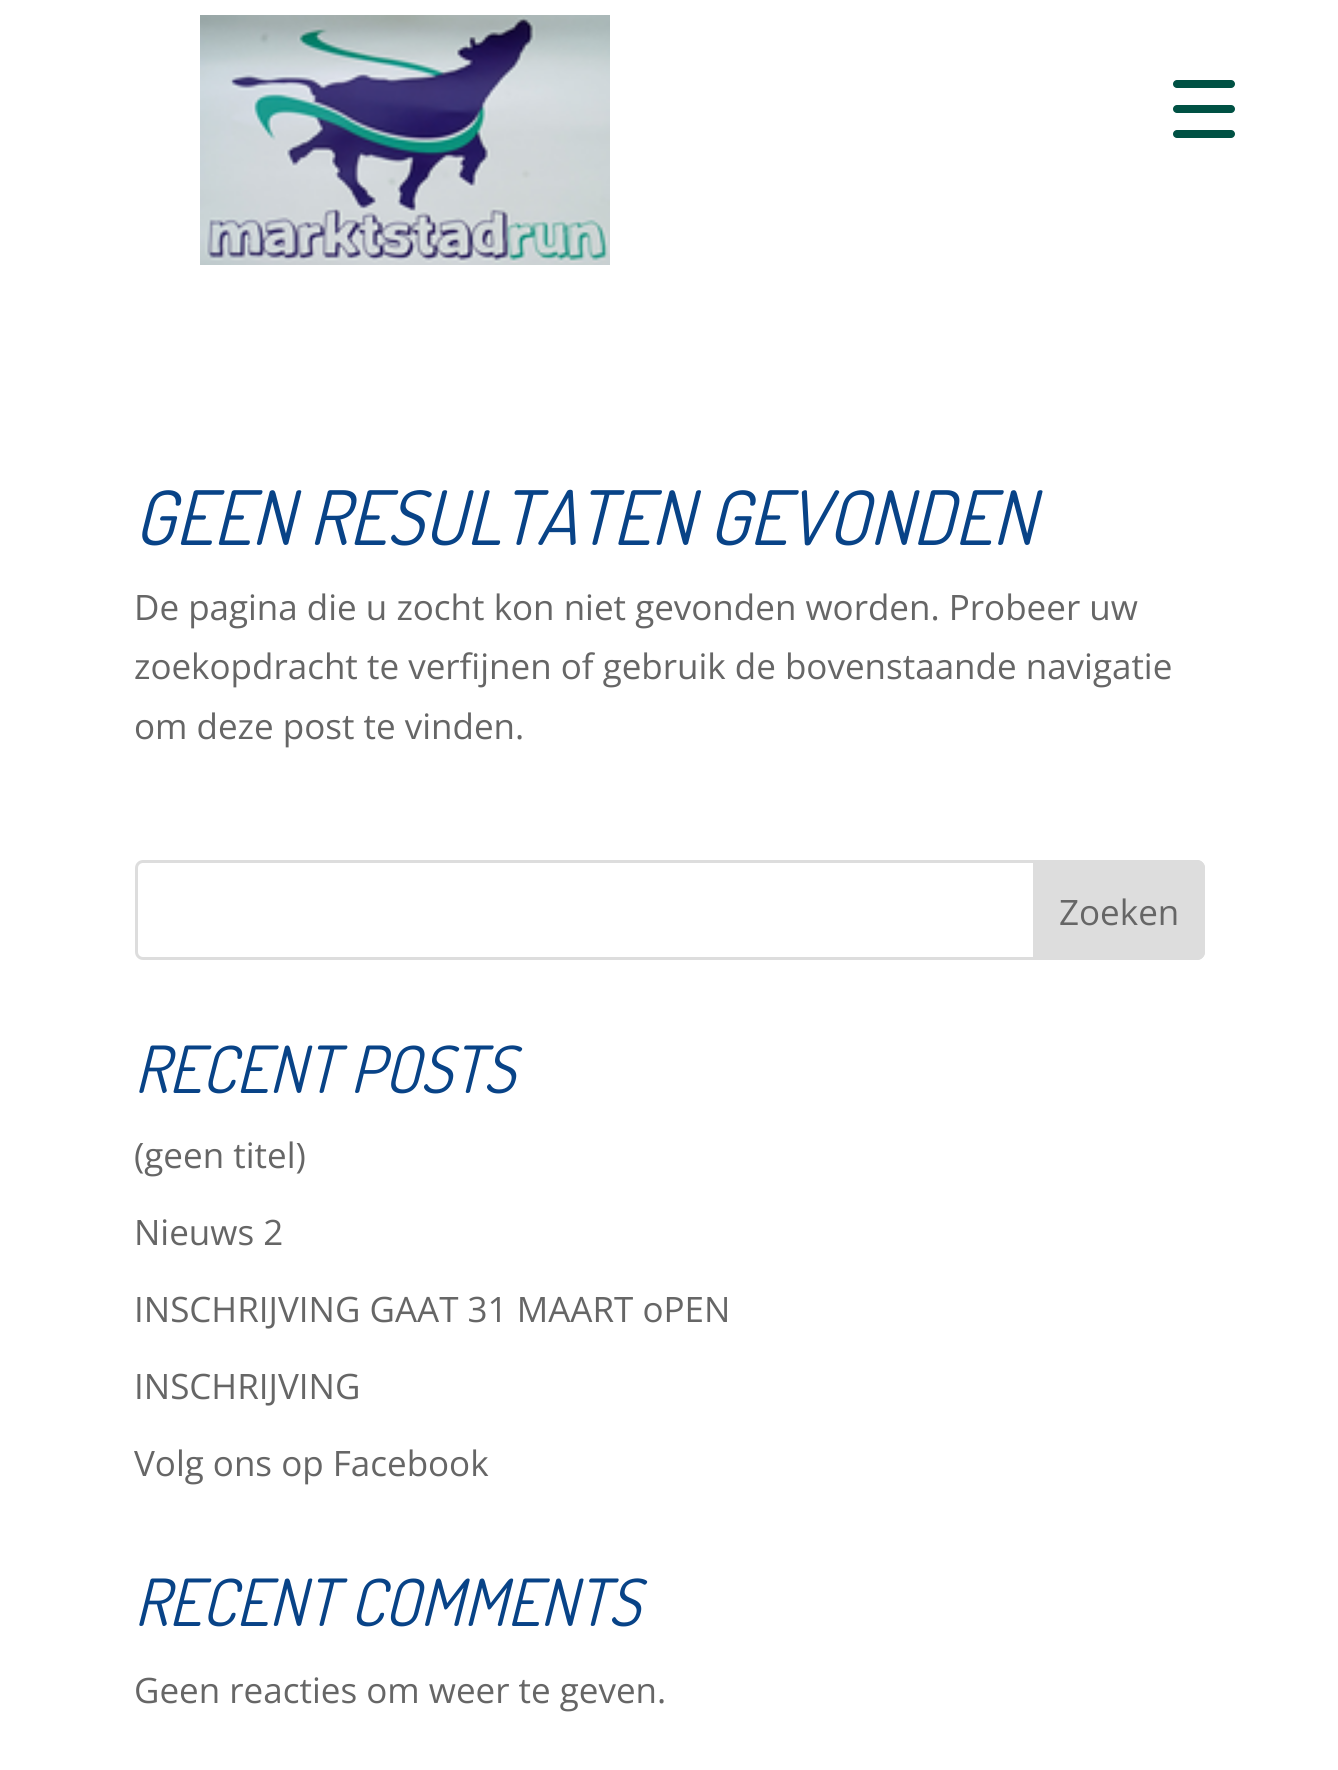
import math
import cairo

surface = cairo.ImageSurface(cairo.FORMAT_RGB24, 1338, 1770)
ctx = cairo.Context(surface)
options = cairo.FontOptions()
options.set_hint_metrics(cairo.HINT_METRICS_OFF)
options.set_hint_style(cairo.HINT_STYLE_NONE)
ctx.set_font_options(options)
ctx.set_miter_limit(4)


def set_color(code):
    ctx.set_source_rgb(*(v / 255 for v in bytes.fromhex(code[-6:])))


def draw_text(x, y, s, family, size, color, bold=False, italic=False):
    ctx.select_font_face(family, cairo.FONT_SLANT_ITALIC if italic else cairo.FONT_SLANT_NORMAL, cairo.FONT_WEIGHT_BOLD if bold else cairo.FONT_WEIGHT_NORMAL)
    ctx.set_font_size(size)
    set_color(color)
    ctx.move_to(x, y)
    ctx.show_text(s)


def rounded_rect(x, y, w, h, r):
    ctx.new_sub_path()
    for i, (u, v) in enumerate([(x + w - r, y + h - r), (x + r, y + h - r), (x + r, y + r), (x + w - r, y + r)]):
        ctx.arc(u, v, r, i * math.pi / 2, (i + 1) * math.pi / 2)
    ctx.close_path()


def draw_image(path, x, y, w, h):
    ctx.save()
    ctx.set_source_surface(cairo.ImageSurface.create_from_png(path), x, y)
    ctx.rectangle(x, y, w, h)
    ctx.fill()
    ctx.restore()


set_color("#ffffff")
ctx.paint()
set_color("#005144")
rounded_rect(1173, 105, 62, 8, 4)
ctx.fill()
rounded_rect(1173, 80, 62, 8, 4)
ctx.fill()
rounded_rect(1173, 130, 62, 8, 4)
ctx.fill()
draw_image("assets/img1.png", 200, 15, 410, 250)
draw_text(134, 545, "GEEN RESULTATEN GEVONDEN", "Dosis", 75, "#084387", italic=True)
draw_text(134, 620, "De pagina die u zocht kon niet gevonden worden. Probeer uw", "Open Sans", 35, "#666666")
draw_text(134, 679, "zoekopdracht te verfijnen of gebruik de bovenstaande navigatie", "Open Sans", 35, "#666666")
draw_text(134, 739, "om deze post te vinden.", "Open Sans", 35, "#666666")
rounded_rect(136.5, 861.5, 1067, 97, 6.5)
set_color("#dddddd")
ctx.set_line_width(3)
ctx.stroke()
ctx.new_path()
ctx.move_to(1034.5, 861.5)
ctx.line_to(1197, 861.5)
ctx.curve_to(1200.5, 861.5, 1203.5, 864.5, 1203.5, 868)
ctx.line_to(1203.5, 952)
ctx.curve_to(1203.5, 955.5, 1200.5, 958.5, 1197, 958.5)
ctx.line_to(1034.5, 958.5)
ctx.close_path()
ctx.fill_preserve()
ctx.stroke()
draw_text(1059, 925, "Zoeken", "Open Sans", 35, "#666666")
draw_text(134, 1093, "RECENT POSTS", "Dosis", 65, "#084387", italic=True)
draw_text(134, 1168, "(geen titel)", "Open Sans", 35, "#666666")
draw_text(134, 1245, "Nieuws 2", "Open Sans", 35, "#666666")
draw_text(134, 1322, "INSCHRIJVING GAAT 31 MAART oPEN", "Open Sans", 35, "#666666")
draw_text(134, 1399, "INSCHRIJVING", "Open Sans", 35, "#666666")
draw_text(134, 1476, "Volg ons op Facebook", "Open Sans", 35, "#666666")
draw_text(134, 1626, "RECENT COMMENTS", "Dosis", 65, "#084387", italic=True)
draw_text(134, 1703, "Geen reacties om weer te geven.", "Open Sans", 35, "#666666")
surface.write_to_png("output.png")
